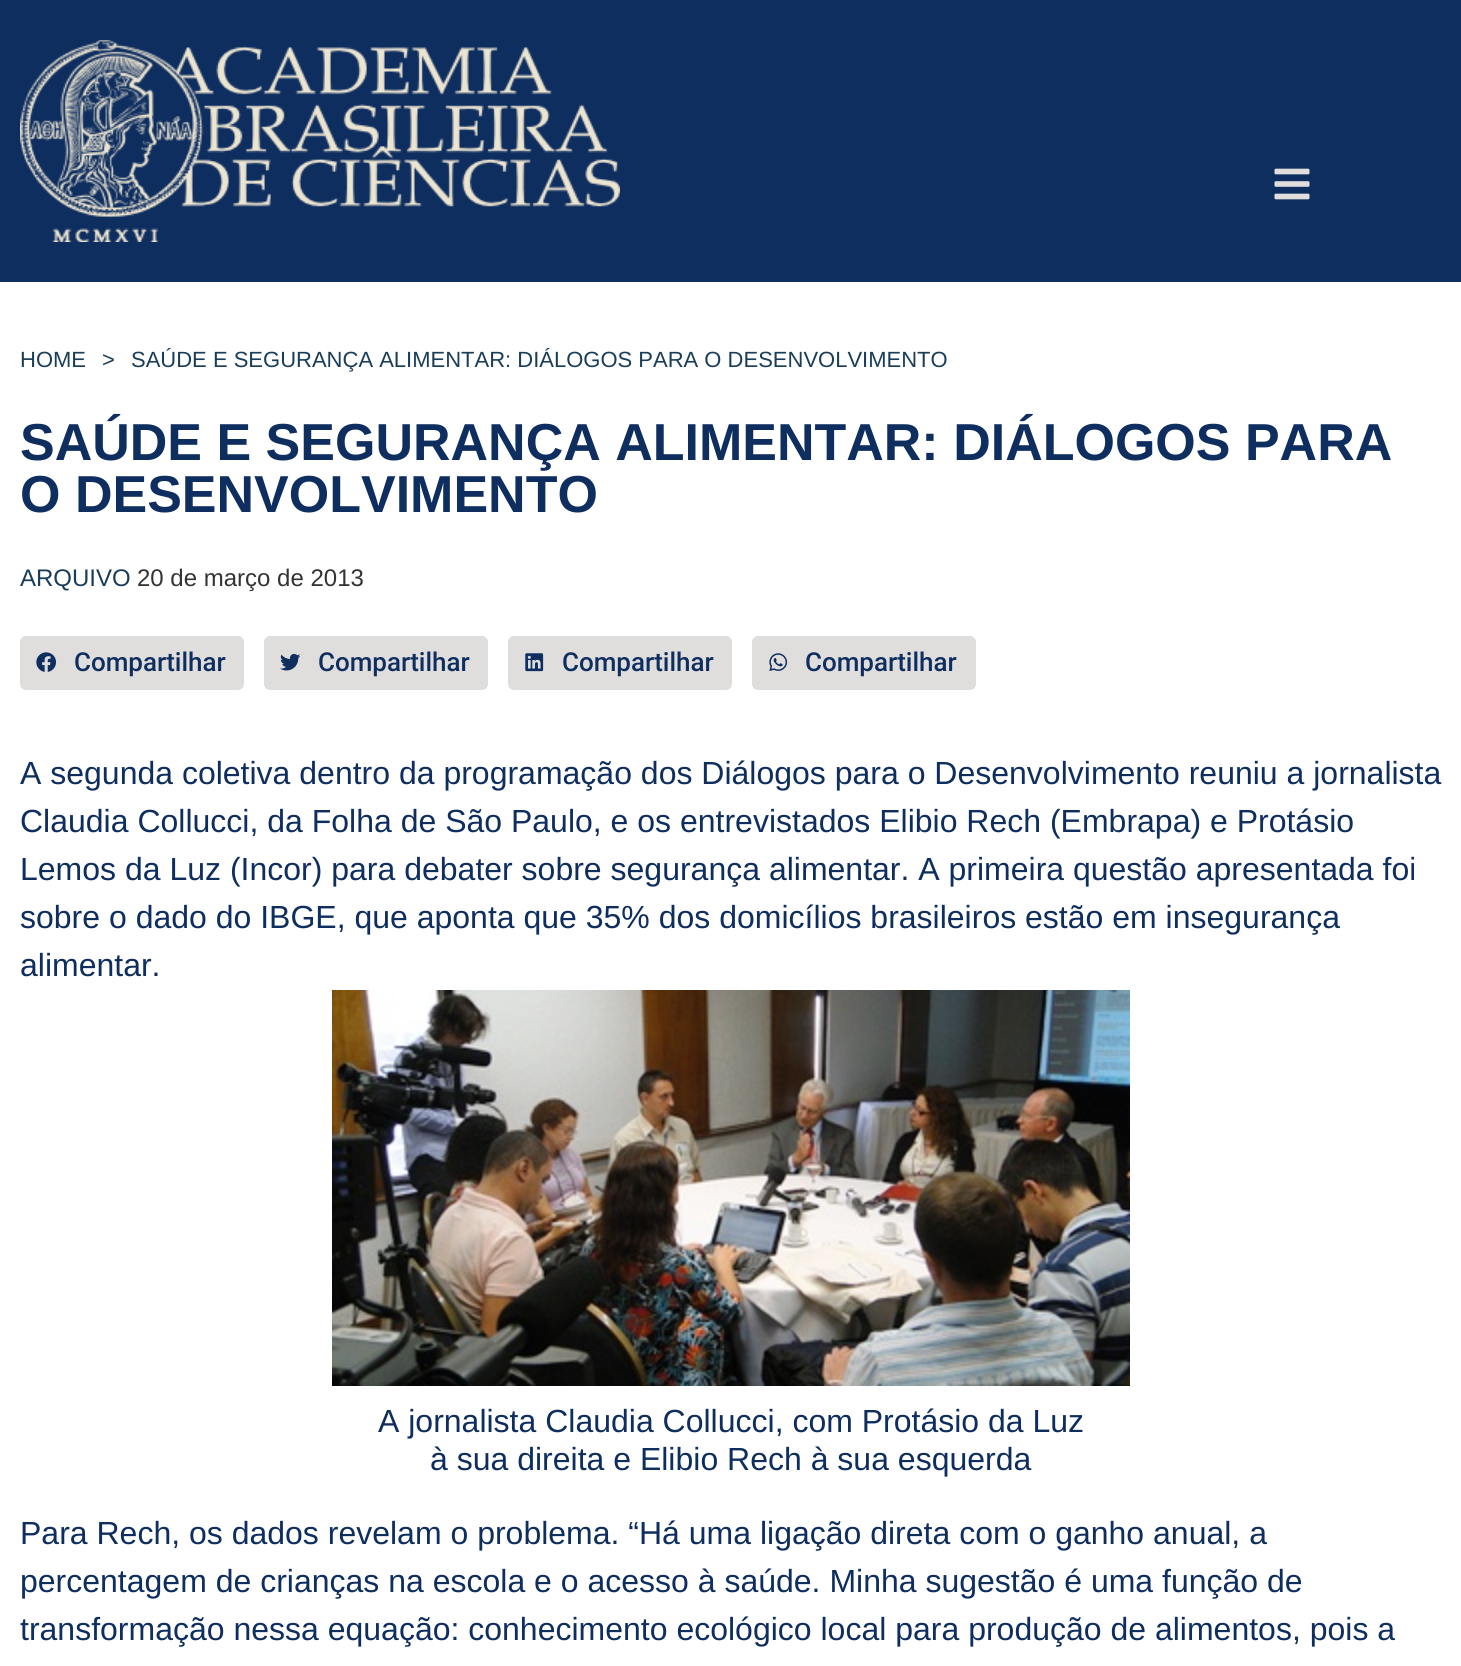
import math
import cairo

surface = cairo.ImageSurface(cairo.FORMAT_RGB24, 1461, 1666)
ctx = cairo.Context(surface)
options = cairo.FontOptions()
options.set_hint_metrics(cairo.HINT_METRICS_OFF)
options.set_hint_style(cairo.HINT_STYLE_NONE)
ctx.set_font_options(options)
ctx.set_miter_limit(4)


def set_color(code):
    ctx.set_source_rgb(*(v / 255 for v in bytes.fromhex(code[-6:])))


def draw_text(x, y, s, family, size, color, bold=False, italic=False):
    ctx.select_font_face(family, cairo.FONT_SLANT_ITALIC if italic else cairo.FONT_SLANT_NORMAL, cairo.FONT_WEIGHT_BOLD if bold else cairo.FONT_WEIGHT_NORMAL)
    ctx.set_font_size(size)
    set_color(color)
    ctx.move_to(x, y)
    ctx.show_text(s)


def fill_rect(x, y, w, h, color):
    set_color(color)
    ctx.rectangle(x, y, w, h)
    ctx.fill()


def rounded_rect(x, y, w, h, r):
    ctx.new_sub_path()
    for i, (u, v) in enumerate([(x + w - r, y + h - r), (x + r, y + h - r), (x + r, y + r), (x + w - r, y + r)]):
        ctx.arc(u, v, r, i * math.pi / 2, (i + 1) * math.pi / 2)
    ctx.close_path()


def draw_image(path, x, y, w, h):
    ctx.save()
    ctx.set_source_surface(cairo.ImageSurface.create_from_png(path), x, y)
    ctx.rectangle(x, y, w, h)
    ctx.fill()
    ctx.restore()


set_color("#ffffff")
ctx.paint()
fill_rect(0, 0, 1461, 282, "#0f2e60")
draw_image("assets/img1.png", 20, 40, 600, 202)
draw_image("assets/img2.png", 1274, 168, 36, 32)
draw_text(20, 367, "HOME", "Liberation Sans", 22, "#1a3e5a")
draw_text(102, 367, ">", "Liberation Sans", 22, "#1a3e5a")
draw_text(131, 367, "SAÚDE E SEGURANÇA ALIMENTAR: DIÁLOGOS PARA O DESENVOLVIMENTO", "Liberation Sans", 22, "#1a3e5a")
draw_text(20, 460, "SAÚDE E SEGURANÇA ALIMENTAR: DIÁLOGOS PARA", "Liberation Sans", 52, "#0f2e60", bold=True)
draw_text(20, 512, "O DESENVOLVIMENTO", "Liberation Sans", 52, "#0f2e60", bold=True)
draw_text(20, 586, "ARQUIVO", "Liberation Sans", 24, "#1a3e5a")
draw_text(137, 586, "20 de março de 2013", "Liberation Sans", 24, "#333333")
set_color("#dfdedc")
rounded_rect(20, 636, 224, 54, 6)
ctx.fill()
draw_image("assets/img3.png", 36, 652, 21, 20)
draw_text(74, 671, "Compartilhar", "Roboto Medium", 26, "#0f2e60")
set_color("#dfdedc")
rounded_rect(264, 636, 224, 54, 6)
ctx.fill()
draw_image("assets/img4.png", 280, 653, 20, 18)
draw_text(318, 671, "Compartilhar", "Roboto Medium", 26, "#0f2e60")
set_color("#dfdedc")
rounded_rect(508, 636, 224, 54, 6)
ctx.fill()
draw_image("assets/img5.png", 525, 653, 19, 19)
draw_text(562, 671, "Compartilhar", "Roboto Medium", 26, "#0f2e60")
set_color("#dfdedc")
rounded_rect(752, 636, 224, 54, 6)
ctx.fill()
draw_image("assets/img6.png", 769, 653, 19, 18)
draw_text(805, 671, "Compartilhar", "Roboto Medium", 26, "#0f2e60")
draw_text(20, 784, "A segunda coletiva dentro da programação dos Diálogos para o Desenvolvimento reuniu a jornalista", "Liberation Sans", 32, "#0f2e60")
draw_text(20, 832, "Claudia Collucci, da Folha de São Paulo, e os entrevistados Elibio Rech (Embrapa) e Protásio", "Liberation Sans", 32, "#0f2e60")
draw_text(20, 880, "Lemos da Luz (Incor) para debater sobre segurança alimentar. A primeira questão apresentada foi", "Liberation Sans", 32, "#0f2e60")
draw_text(20, 928, "sobre o dado do IBGE, que aponta que 35% dos domicílios brasileiros estão em insegurança", "Liberation Sans", 32, "#0f2e60")
draw_text(20, 976, "alimentar.", "Liberation Sans", 32, "#0f2e60")
draw_image("assets/img7.png", 332, 990, 798, 396)
draw_text(378, 1432, "A jornalista Claudia Collucci, com Protásio da Luz", "Liberation Sans", 32, "#0f2e60")
draw_text(430, 1470, "à sua direita e Elibio Rech à sua esquerda", "Liberation Sans", 32, "#0f2e60")
draw_text(20, 1544, "Para Rech, os dados revelam o problema. “Há uma ligação direta com o ganho anual, a", "Liberation Sans", 32, "#0f2e60")
draw_text(20, 1592, "percentagem de crianças na escola e o acesso à saúde. Minha sugestão é uma função de", "Liberation Sans", 32, "#0f2e60")
draw_text(20, 1640, "transformação nessa equação: conhecimento ecológico local para produção de alimentos, pois a", "Liberation Sans", 32, "#0f2e60")
surface.write_to_png("output.png")
